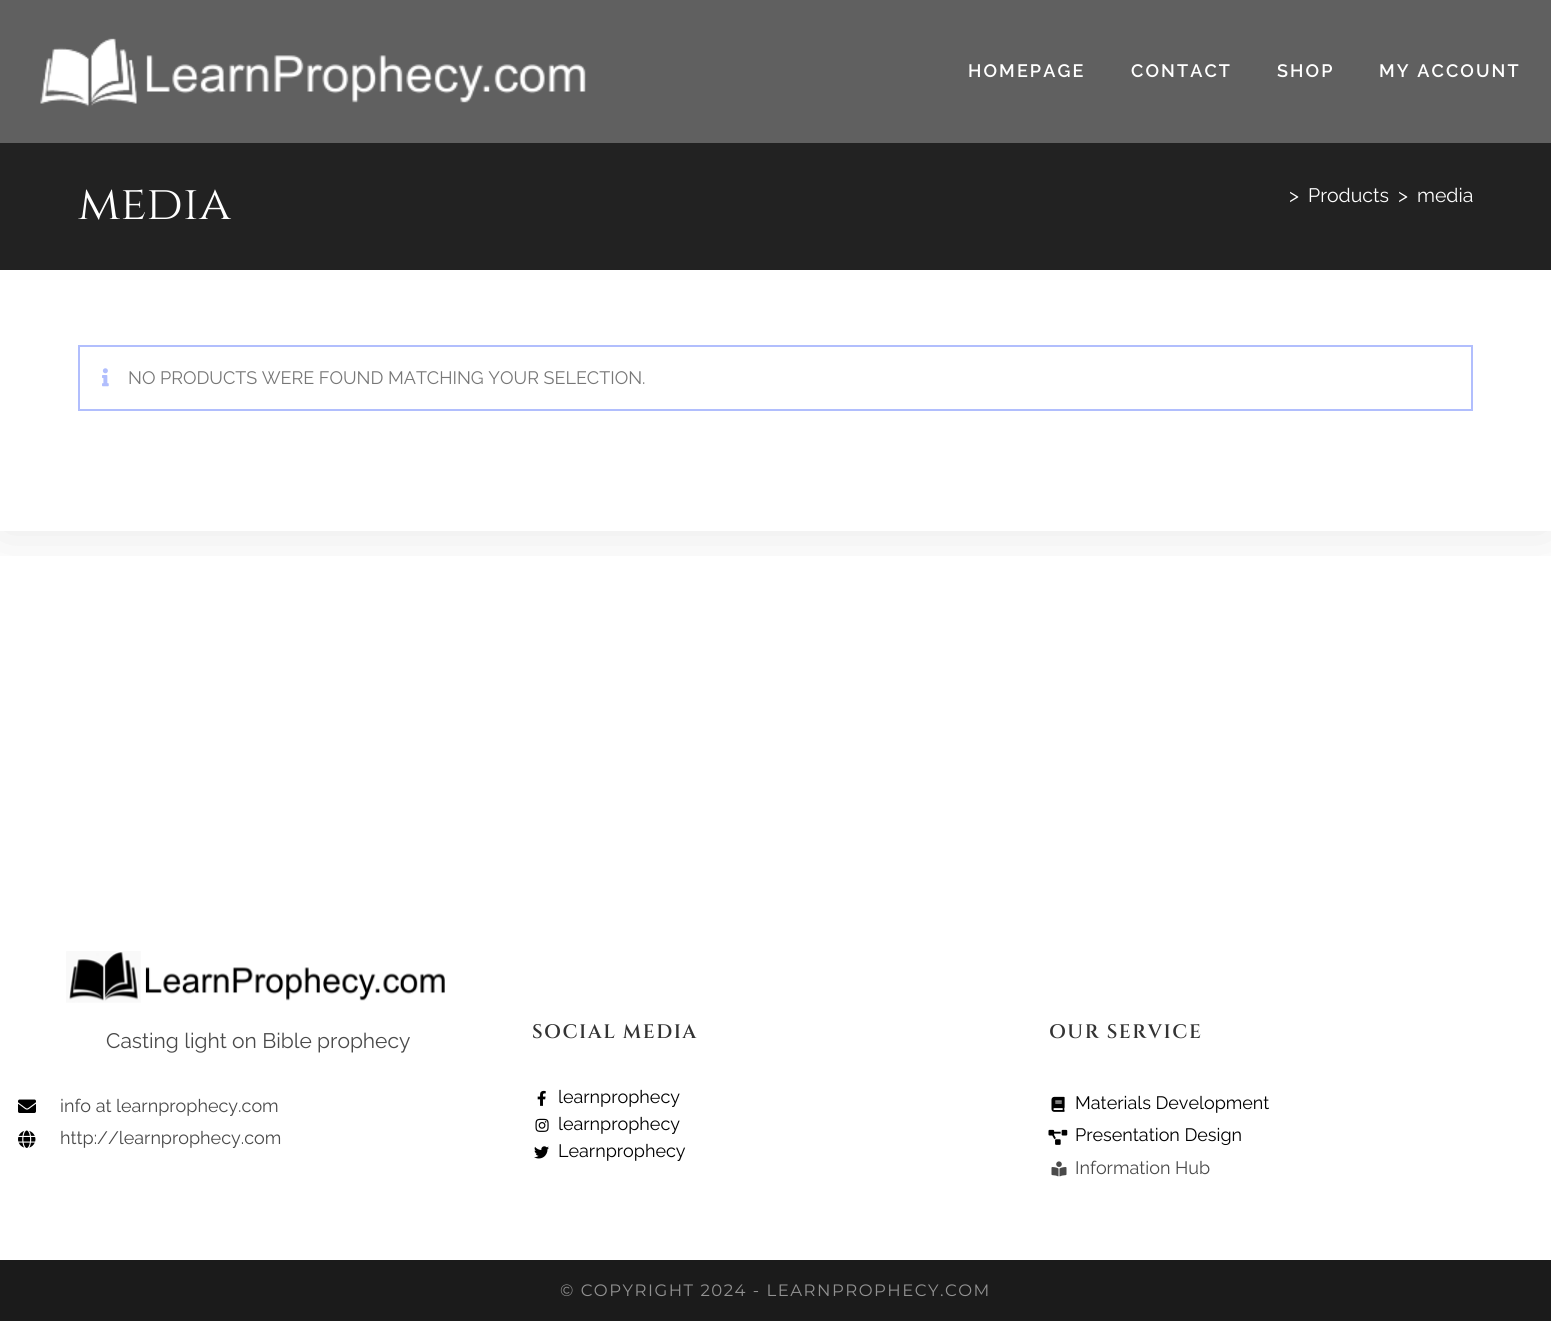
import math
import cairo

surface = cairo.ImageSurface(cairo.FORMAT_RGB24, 1551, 1321)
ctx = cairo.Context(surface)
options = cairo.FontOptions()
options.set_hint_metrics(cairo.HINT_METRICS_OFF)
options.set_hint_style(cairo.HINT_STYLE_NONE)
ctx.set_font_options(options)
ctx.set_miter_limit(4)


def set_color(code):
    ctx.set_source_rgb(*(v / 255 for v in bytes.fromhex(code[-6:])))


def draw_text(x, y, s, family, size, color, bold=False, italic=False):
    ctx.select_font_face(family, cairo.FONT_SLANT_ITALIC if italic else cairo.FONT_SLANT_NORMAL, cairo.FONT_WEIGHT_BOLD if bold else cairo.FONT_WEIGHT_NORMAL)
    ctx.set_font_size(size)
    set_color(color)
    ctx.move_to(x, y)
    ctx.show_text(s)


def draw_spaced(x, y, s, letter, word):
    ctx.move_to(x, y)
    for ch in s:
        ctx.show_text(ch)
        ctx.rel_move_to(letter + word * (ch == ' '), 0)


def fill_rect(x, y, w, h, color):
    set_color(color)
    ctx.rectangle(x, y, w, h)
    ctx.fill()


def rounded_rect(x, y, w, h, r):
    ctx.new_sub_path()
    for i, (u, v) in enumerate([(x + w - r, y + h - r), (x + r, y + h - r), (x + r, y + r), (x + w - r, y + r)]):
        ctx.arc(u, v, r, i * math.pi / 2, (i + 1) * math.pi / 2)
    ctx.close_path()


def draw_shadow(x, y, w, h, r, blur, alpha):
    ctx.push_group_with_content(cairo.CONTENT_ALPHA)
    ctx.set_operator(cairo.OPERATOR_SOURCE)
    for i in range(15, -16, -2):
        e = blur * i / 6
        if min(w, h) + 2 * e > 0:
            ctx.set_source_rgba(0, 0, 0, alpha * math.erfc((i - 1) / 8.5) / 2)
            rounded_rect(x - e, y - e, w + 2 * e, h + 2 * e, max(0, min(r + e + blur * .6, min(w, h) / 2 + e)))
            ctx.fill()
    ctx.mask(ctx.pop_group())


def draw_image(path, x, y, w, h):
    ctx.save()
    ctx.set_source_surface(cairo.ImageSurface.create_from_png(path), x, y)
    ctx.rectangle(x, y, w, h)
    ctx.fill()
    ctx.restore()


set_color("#ffffff")
ctx.paint()
ctx.save()
ctx.rectangle(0, 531, 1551, 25)
ctx.clip()
set_color("#000000")
draw_shadow(0, 143, 1551, 388, 0, 30, 0.1)
ctx.restore()
fill_rect(0, 0, 1551, 143, "#606060")
draw_image("assets/img1.png", 40, 38, 546, 69)
ctx.select_font_face("Raleway SemiBold")
ctx.set_font_size(18)
set_color("#ffffff")
draw_spaced(968, 77, "HOMEPAGE", 2.1, 0)
draw_spaced(1131, 77, "CONTACT", 2.1, 0)
draw_spaced(1277, 77, "SHOP", 2.1, 0)
draw_spaced(1379, 77, "MY ACCOUNT", 2.1, 0)
fill_rect(0, 143, 1551, 127, "#222222")
draw_text(78, 219, "media", "Cinzel", 48, "#ffffff")
draw_text(1289, 202, ">", "Raleway", 19.5, "#ffffff")
draw_text(1308, 202, "Products", "Raleway", 19.5, "#ffffff")
draw_text(1398, 202, ">", "Raleway", 19.5, "#ffffff")
draw_text(1417, 202, "media", "Raleway", 19.5, "#ffffff")
ctx.rectangle(79, 346, 1393, 64)
set_color("#b1befd")
ctx.stroke()
draw_image("assets/img2.png", 102, 368, 7, 19)
draw_text(128, 384, "NO PRODUCTS WERE FOUND MATCHING YOUR SELECTION.", "Raleway", 18, "#777777")
draw_image("assets/img3.png", 66, 951, 379, 52)
draw_text(106, 1048, "Casting light on Bible prophecy", "Raleway", 21, "#4a4a4a")
draw_image("assets/img4.png", 18, 1099, 18, 14)
draw_text(60, 1112, "info at learnprophecy.com", "Raleway", 18, "#4a4a4a")
draw_image("assets/img5.png", 18, 1130, 18, 18)
draw_text(60, 1144, "http://learnprophecy.com", "Raleway", 18, "#4a4a4a")
ctx.select_font_face("Cinzel SemiBold")
ctx.set_font_size(19.5)
set_color("#333333")
draw_spaced(532, 1038, "SOCIAL MEDIA", 1.5, 0)
draw_image("assets/img6.png", 537, 1090, 9, 16)
draw_text(558, 1103, "learnprophecy", "Raleway", 18, "#000000")
draw_image("assets/img7.png", 535, 1118, 14, 14)
draw_text(558, 1130, "learnprophecy", "Raleway", 18, "#000000")
draw_image("assets/img8.png", 534, 1146, 15, 13)
draw_text(558, 1157, "Learnprophecy", "Raleway", 18, "#000000")
ctx.select_font_face("Cinzel SemiBold")
ctx.set_font_size(19.5)
set_color("#333333")
draw_spaced(1049, 1038, "OUR SERVICE", 1.5, 0)
draw_image("assets/img9.png", 1051, 1096, 14, 16)
draw_text(1075, 1109, "Materials Development", "Raleway", 18, "#000000")
draw_image("assets/img10.png", 1048, 1129, 20, 16)
draw_text(1075, 1141, "Presentation Design", "Raleway", 18, "#000000")
draw_image("assets/img11.png", 1051, 1161, 16, 16)
draw_text(1075, 1174, "Information Hub", "Raleway", 18, "#4a4a4a")
fill_rect(0, 1260, 1551, 61, "#1b1b1b")
ctx.select_font_face("Montserrat")
ctx.set_font_size(16.5)
set_color("#929292")
draw_spaced(560, 1296, "© COPYRIGHT 2024 - LEARNPROPHECY.COM", 1.5, 0)
surface.write_to_png("output.png")
